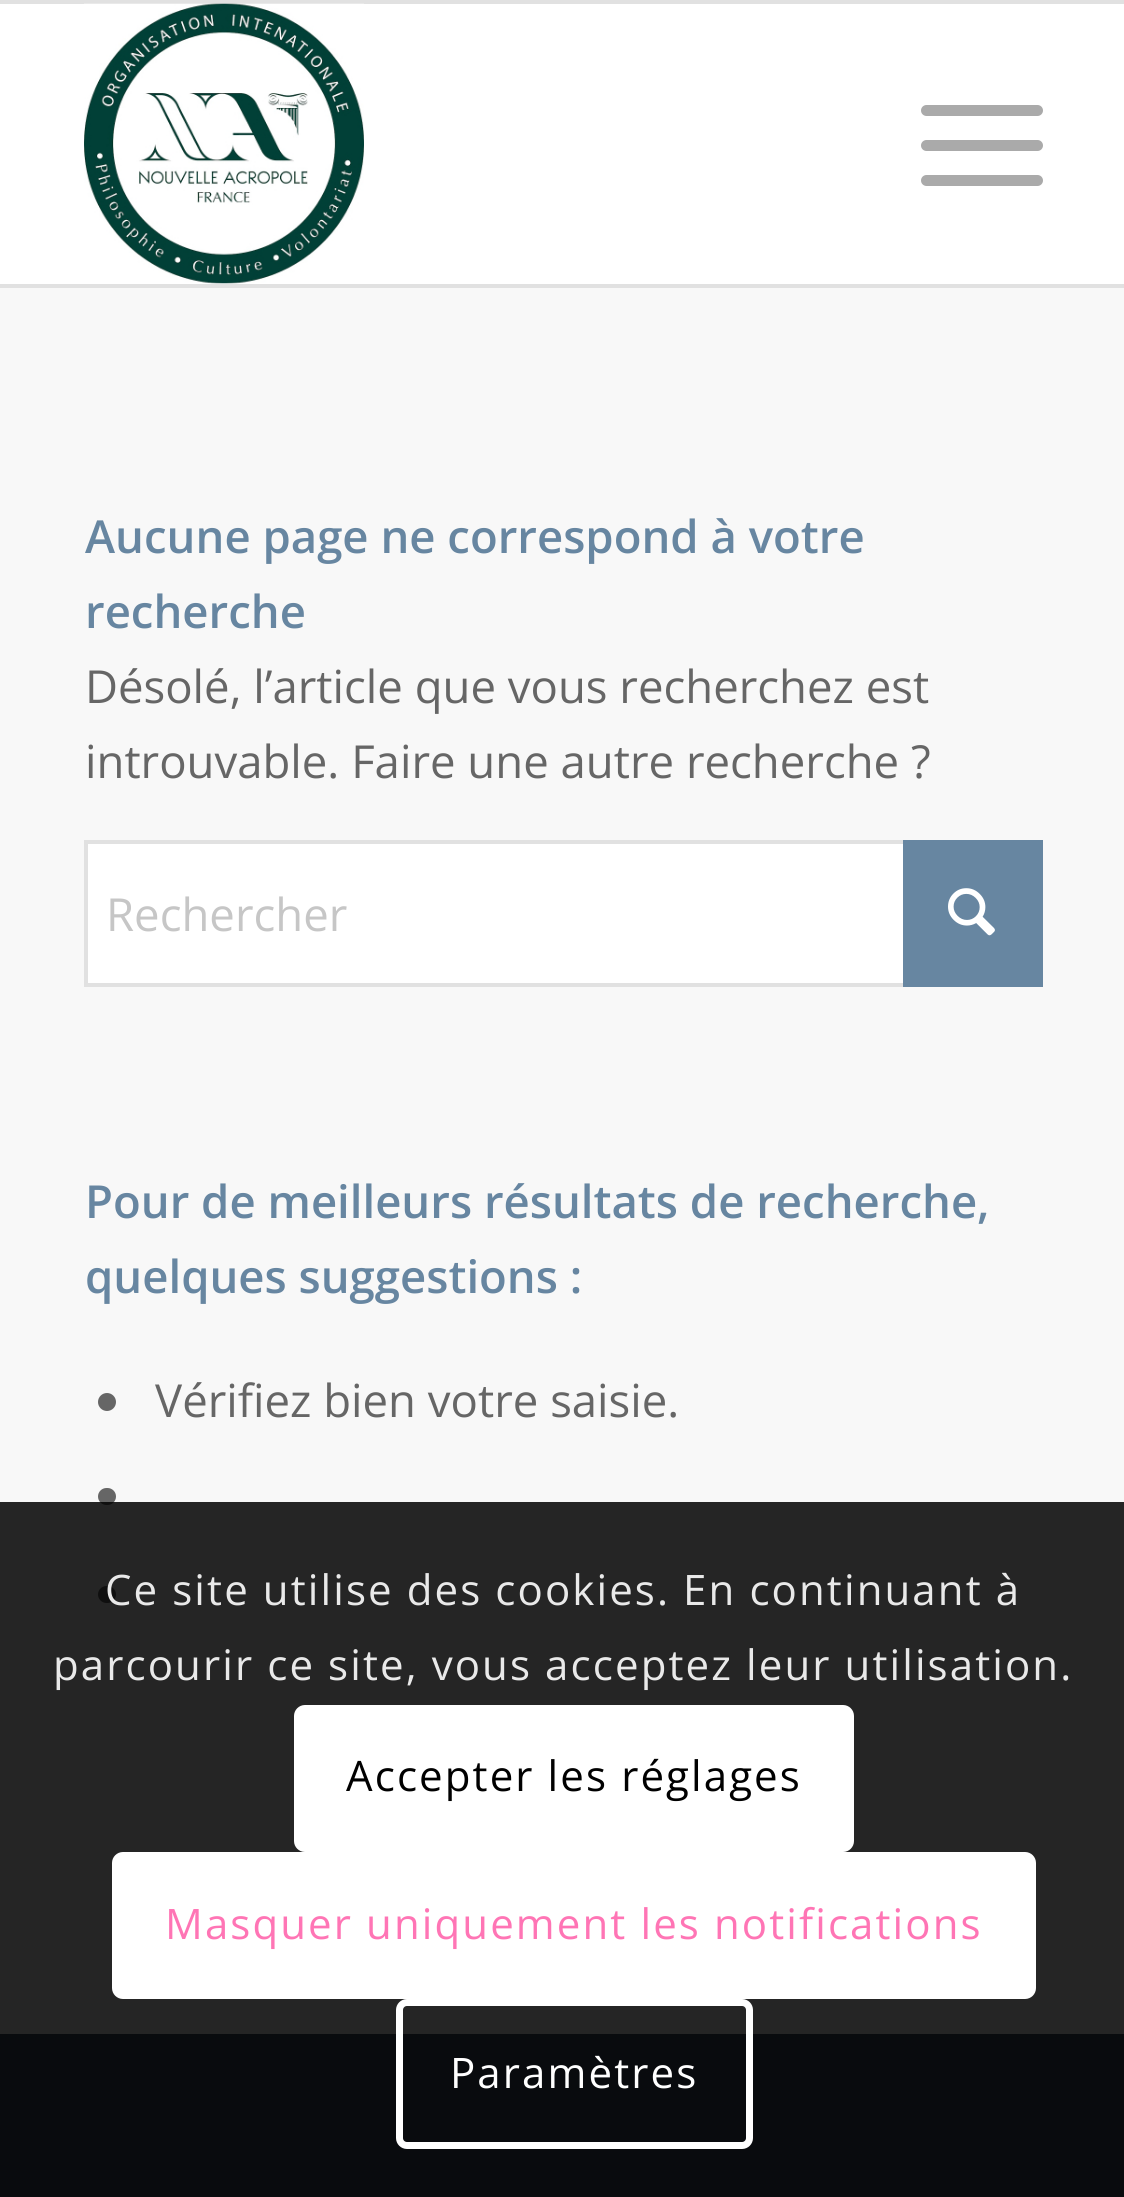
import math
import cairo

surface = cairo.ImageSurface(cairo.FORMAT_RGB24, 1124, 2197)
ctx = cairo.Context(surface)
options = cairo.FontOptions()
options.set_hint_metrics(cairo.HINT_METRICS_OFF)
options.set_hint_style(cairo.HINT_STYLE_NONE)
ctx.set_font_options(options)
ctx.set_miter_limit(4)


def set_color(code):
    ctx.set_source_rgb(*(v / 255 for v in bytes.fromhex(code[-6:])))


def draw_text(x, y, s, family, size, color, bold=False, italic=False):
    ctx.select_font_face(family, cairo.FONT_SLANT_ITALIC if italic else cairo.FONT_SLANT_NORMAL, cairo.FONT_WEIGHT_BOLD if bold else cairo.FONT_WEIGHT_NORMAL)
    ctx.set_font_size(size)
    set_color(color)
    ctx.move_to(x, y)
    ctx.show_text(s)


def draw_spaced(x, y, s, letter, word):
    ctx.move_to(x, y)
    for ch in s:
        ctx.show_text(ch)
        ctx.rel_move_to(letter + word * (ch == ' '), 0)


def fill_rect(x, y, w, h, color):
    set_color(color)
    ctx.rectangle(x, y, w, h)
    ctx.fill()


def rounded_rect(x, y, w, h, r):
    ctx.new_sub_path()
    for i, (u, v) in enumerate([(x + w - r, y + h - r), (x + r, y + h - r), (x + r, y + r), (x + w - r, y + r)]):
        ctx.arc(u, v, r, i * math.pi / 2, (i + 1) * math.pi / 2)
    ctx.close_path()


def draw_image(path, x, y, w, h):
    ctx.save()
    ctx.set_source_surface(cairo.ImageSurface.create_from_png(path), x, y)
    ctx.rectangle(x, y, w, h)
    ctx.fill()
    ctx.restore()


set_color("#f8f8f8")
ctx.paint()
fill_rect(0, 0, 1124, 4, "#e1e1e1")
fill_rect(0, 284, 1124, 4, "#e1e1e1")
fill_rect(0, 4, 1124, 280, "#ffffff")
draw_image("assets/img1.png", 84, 3, 280, 281)
set_color("#aaaaaa")
rounded_rect(921, 140, 122, 11, 5.5)
ctx.fill()
rounded_rect(921, 105, 122, 11, 5.5)
ctx.fill()
rounded_rect(921, 175, 122, 11, 5.5)
ctx.fill()
draw_text(85, 553, "Aucune page ne correspond à votre", "Open Sans SemiBold", 45.5, "#6786a1")
draw_text(85, 628, "recherche", "Open Sans SemiBold", 45.5, "#6786a1")
draw_text(85, 703, "Désolé, l’article que vous recherchez est", "Open Sans", 45.5, "#666666")
draw_text(85, 778, "introuvable. Faire une autre recherche ?", "Open Sans", 45.5, "#666666")
fill_rect(88, 844, 815, 139, "#ffffff")
ctx.rectangle(86, 842, 955, 143)
set_color("#e1e1e1")
ctx.set_line_width(4)
ctx.stroke()
fill_rect(903, 840, 140, 147, "#6786a1")
draw_text(106, 931, "Rechercher", "Open Sans", 45.5, "#c6c6c6")
draw_image("assets/img2.png", 948, 888, 47, 48)
draw_text(85, 1218, "Pour de meilleurs résultats de recherche,", "Open Sans SemiBold", 45.5, "#6786a1")
draw_text(85, 1293, "quelques suggestions :", "Open Sans SemiBold", 45.5, "#6786a1")
set_color("#666666")
ctx.new_path()
ctx.arc(107, 1402, 9, 0, 2 * math.pi)
ctx.fill()
draw_text(155, 1417, "Vérifiez bien votre saisie.", "Open Sans", 45.5, "#666666")
rounded_rect(98, 1488, 18, 17, 8.5)
ctx.fill()
rounded_rect(98, 1586, 18, 17, 8.5)
ctx.fill()
fill_rect(0, 2034, 1124, 163, "#3a4d5c")
ctx.set_source_rgba(0, 0, 0, 0.85)
ctx.rectangle(0, 1502, 1124, 695)
ctx.fill()
ctx.set_font_size(42)
set_color("#e9e9e9")
draw_spaced(105, 1605, "Ce site utilise des cookies. En continuant à", 2.1, 0)
draw_spaced(53, 1680, "parcourir ce site, vous acceptez leur utilisation.", 2.1, 0)
set_color("#ffffff")
rounded_rect(294, 1705, 560, 147, 11)
ctx.fill()
set_color("#000000")
draw_spaced(346, 1791, "Accepter les réglages", 2.1, 0)
set_color("#ffffff")
rounded_rect(115.5, 1855.5, 917, 140, 7.5)
ctx.fill_preserve()
ctx.set_line_width(7)
ctx.stroke()
set_color("#ff75b5")
draw_spaced(165, 1939, "Masquer uniquement les notifications", 2.1, 0)
rounded_rect(399.5, 2002.5, 350, 143, 7.5)
set_color("#ffffff")
ctx.stroke()
draw_spaced(450, 2088, "Paramètres", 2.1, 0)
surface.write_to_png("output.png")
